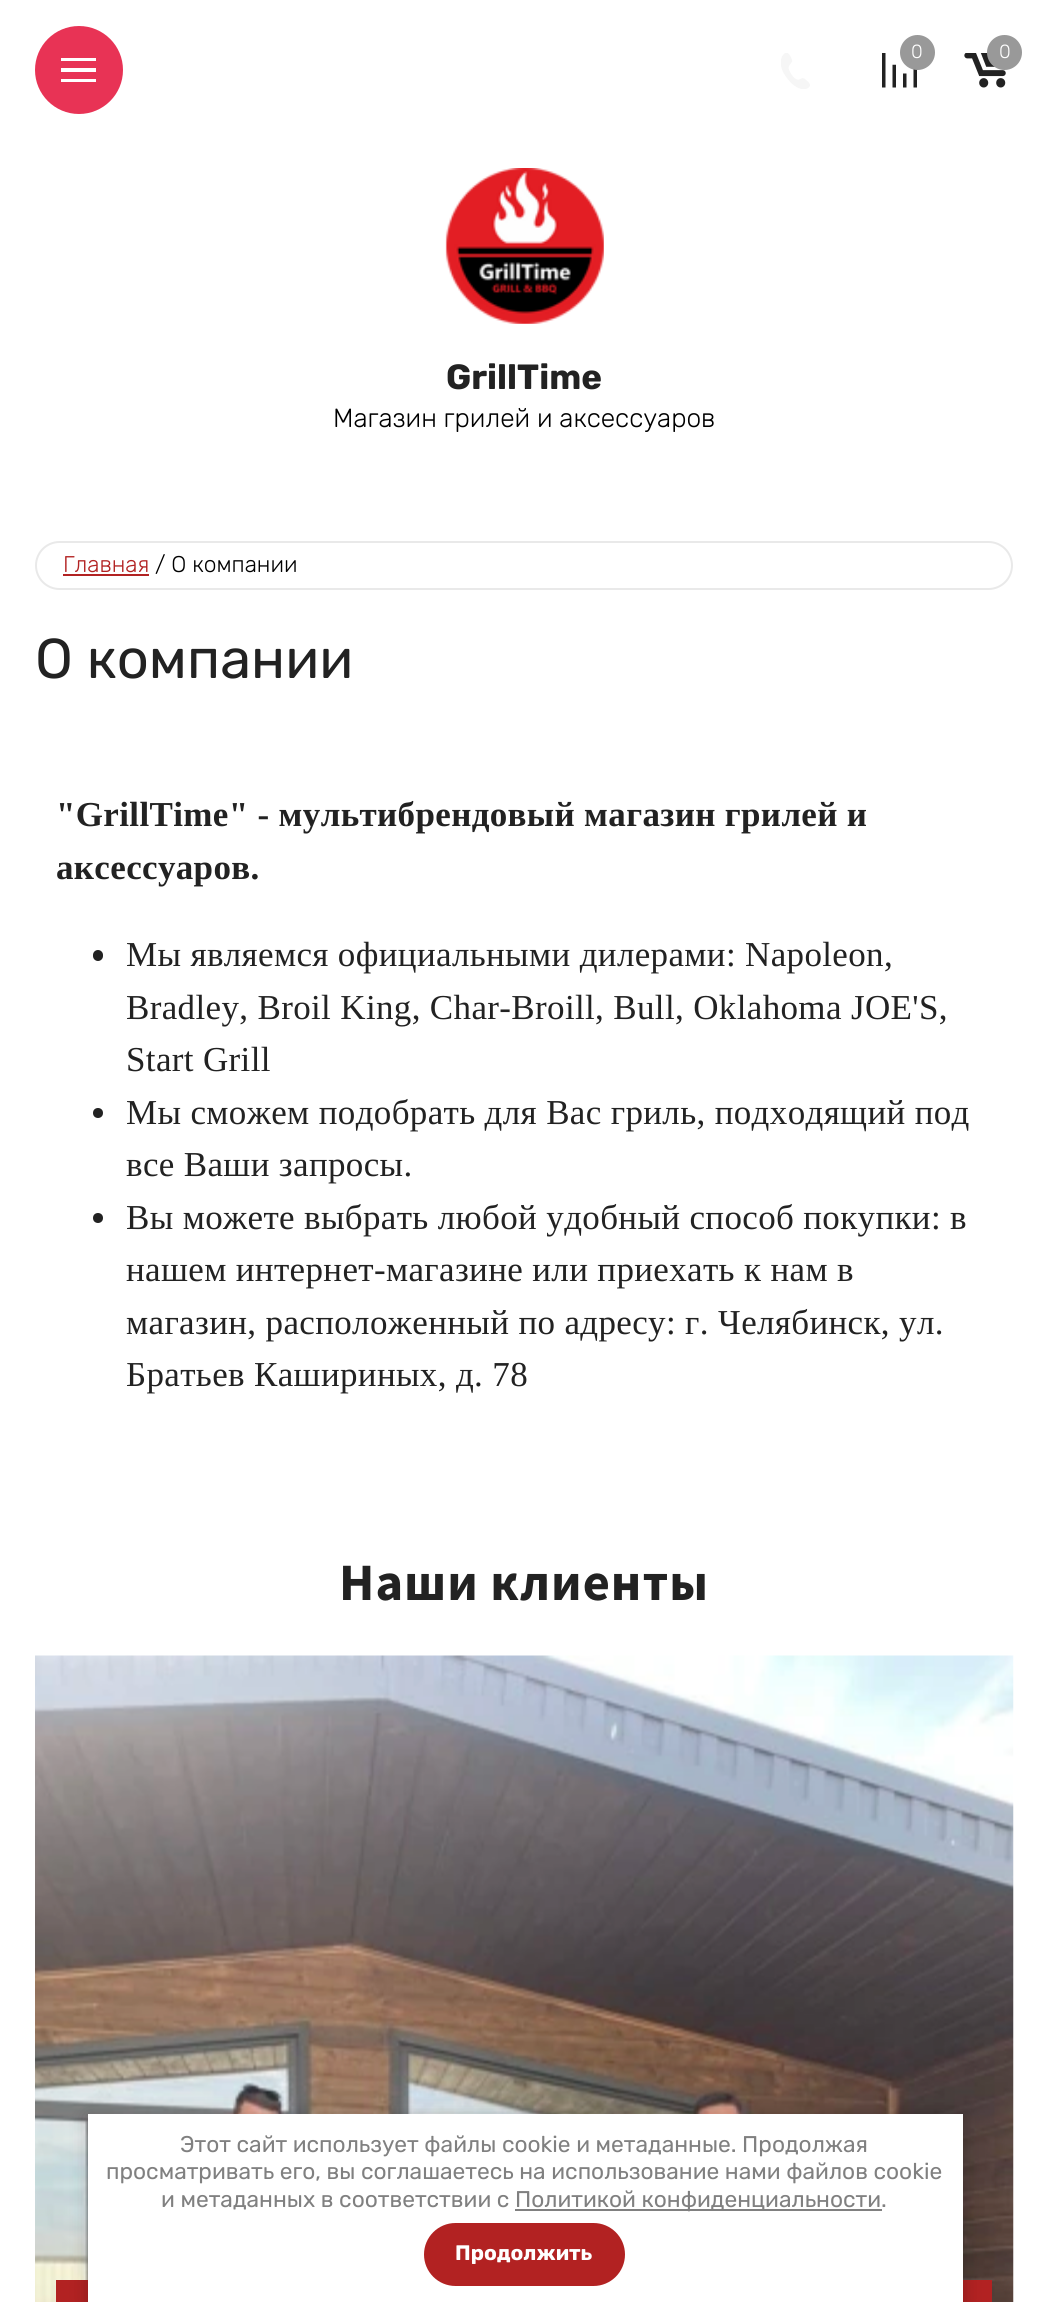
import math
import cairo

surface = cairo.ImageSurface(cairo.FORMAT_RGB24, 1047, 2302)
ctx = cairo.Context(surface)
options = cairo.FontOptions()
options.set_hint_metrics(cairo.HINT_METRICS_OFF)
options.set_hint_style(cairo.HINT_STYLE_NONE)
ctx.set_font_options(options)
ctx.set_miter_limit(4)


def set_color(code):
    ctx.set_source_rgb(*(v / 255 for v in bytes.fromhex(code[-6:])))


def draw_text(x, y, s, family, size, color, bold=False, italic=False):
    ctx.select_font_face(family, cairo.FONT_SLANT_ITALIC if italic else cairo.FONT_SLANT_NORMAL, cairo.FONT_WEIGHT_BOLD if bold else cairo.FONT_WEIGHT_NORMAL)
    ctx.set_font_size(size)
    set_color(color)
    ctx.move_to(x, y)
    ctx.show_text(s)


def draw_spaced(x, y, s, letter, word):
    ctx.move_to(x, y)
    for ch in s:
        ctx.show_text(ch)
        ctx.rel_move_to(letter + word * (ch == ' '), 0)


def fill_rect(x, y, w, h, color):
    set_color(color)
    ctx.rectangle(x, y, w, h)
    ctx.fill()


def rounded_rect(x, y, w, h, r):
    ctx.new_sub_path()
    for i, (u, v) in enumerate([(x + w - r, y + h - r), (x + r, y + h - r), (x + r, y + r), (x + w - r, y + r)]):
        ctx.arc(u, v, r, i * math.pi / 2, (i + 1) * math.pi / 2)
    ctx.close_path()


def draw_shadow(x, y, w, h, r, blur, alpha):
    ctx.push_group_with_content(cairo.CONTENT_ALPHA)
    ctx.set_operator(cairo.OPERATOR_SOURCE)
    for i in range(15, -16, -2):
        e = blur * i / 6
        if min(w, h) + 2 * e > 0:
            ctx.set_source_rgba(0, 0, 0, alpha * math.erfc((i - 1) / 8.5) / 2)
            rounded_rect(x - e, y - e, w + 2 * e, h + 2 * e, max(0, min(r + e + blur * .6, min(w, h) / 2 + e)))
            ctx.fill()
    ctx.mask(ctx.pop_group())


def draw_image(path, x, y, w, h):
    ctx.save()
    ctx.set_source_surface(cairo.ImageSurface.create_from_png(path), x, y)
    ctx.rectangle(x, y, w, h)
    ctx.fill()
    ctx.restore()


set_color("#ffffff")
ctx.paint()
set_color("#e83355")
ctx.arc(79, 70, 44, 0, 2 * math.pi)
ctx.fill()
set_color("#ffffff")
ctx.new_path()
ctx.move_to(61, 58)
ctx.line_to(96, 58)
ctx.line_to(96, 61)
ctx.line_to(61, 61)
ctx.close_path()
ctx.move_to(61, 68)
ctx.line_to(96, 68)
ctx.line_to(96, 72)
ctx.line_to(61, 72)
ctx.close_path()
ctx.move_to(61, 79)
ctx.line_to(96, 79)
ctx.line_to(96, 82)
ctx.line_to(61, 82)
ctx.close_path()
ctx.fill()
draw_image("assets/img1.png", 882, 53, 35, 35)
set_color("#999999")
ctx.arc(917.5, 52.5, 17.5, 0, 2 * math.pi)
ctx.fill()
draw_text(911, 58, "0", "Rubik Light", 19, "#ffffff")
draw_image("assets/img2.png", 964, 53, 42, 35)
set_color("#999999")
ctx.arc(1004.5, 52.5, 17.5, 0, 2 * math.pi)
ctx.fill()
draw_text(999, 58, "0", "Rubik Light", 19, "#ffffff")
draw_image("assets/img3.png", 781, 53, 29, 36)
draw_image("assets/img4.png", 445, 168, 159, 156)
draw_text(446, 389, "GrillTime", "Rubik", 35, "#222222", bold=True)
draw_text(333, 427, "Магазин грилей и аксессуаров", "Rubik Light", 26.25, "#000000")
rounded_rect(36, 542, 976, 47, 23.5)
set_color("#e9e9e9")
ctx.stroke()
draw_text(63, 572, "Главная", "Rubik Light", 22.75, "#b22222")
fill_rect(63, 574, 86, 2, "#b22222")
draw_text(155, 572, "/ О компании", "Rubik Light", 22.75, "#000000")
draw_text(35, 678, "О компании", "Rubik", 56, "#222222")
ctx.select_font_face("Liberation Serif", cairo.FONT_SLANT_NORMAL, cairo.FONT_WEIGHT_BOLD)
ctx.set_font_size(35)
draw_spaced(56, 826, "\"GrillTime\" - мультибрендовый магазин грилей и", 0.35, 0)
draw_spaced(56, 879, "аксессуаров.", 0.35, 0)
rounded_rect(93, 950, 10, 11, 5)
ctx.fill()
ctx.select_font_face("Liberation Serif")
draw_spaced(126, 966, "Мы являемся официальными дилерами: Napoleon,", 0.35, 0)
draw_spaced(126, 1019, "Bradley, Broil King, Char-Broill, Bull, Oklahoma JOE'S,", 0.35, 0)
draw_spaced(126, 1071, "Start Grill", 0.35, 0)
ctx.new_path()
ctx.arc(98, 1113, 5, 0, 2 * math.pi)
ctx.fill()
draw_spaced(126, 1124, "Мы сможем подобрать для Вас гриль, подходящий под", 0.35, 0)
draw_spaced(126, 1176, "все Ваши запросы.", 0.35, 0)
ctx.new_path()
ctx.arc(98, 1218, 5, 0, 2 * math.pi)
ctx.fill()
draw_spaced(126, 1229, "Вы можете выбрать любой удобный способ покупки: в", 0.35, 0)
draw_spaced(126, 1281, "нашем интернет-магазине или приехать к нам в", 0.35, 0)
draw_spaced(126, 1334, "магазин, расположенный по адресу: г. Челябинск, ул.", 0.35, 0)
draw_spaced(126, 1386, "Братьев Кашириных, д. 78", 0.35, 0)
ctx.select_font_face("Source Sans Pro", cairo.FONT_SLANT_NORMAL, cairo.FONT_WEIGHT_BOLD)
ctx.set_font_size(52.5)
draw_spaced(339, 1600, "Наши клиенты", 1, 0)
draw_image("assets/img5.png", 35, 1655, 979, 647)
fill_rect(56, 2280, 32, 22, "#b22222")
fill_rect(963, 2280, 29, 22, "#b22222")
set_color("#000000")
draw_shadow(88, 2116, 875, 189, 0, 9, 0.23)
fill_rect(88, 2114, 875, 188, "#ffffff")
draw_text(180, 2152, "Этот сайт использует файлы cookie и метаданные. Продолжая", "Rubik", 22.75, "#808080")
draw_text(106, 2179, "просматривать его, вы соглашаетесь на использование нами файлов cookie", "Rubik", 22.75, "#808080")
draw_text(161, 2207, "и метаданных в соответствии с", "Rubik", 22.75, "#808080")
fill_rect(515, 2209, 367, 2, "#808080")
draw_text(515, 2207, "Политикой конфиденциальности.", "Rubik", 22.75, "#808080")
set_color("#b22222")
rounded_rect(424, 2223, 201, 63, 31.5)
ctx.fill()
draw_text(455, 2260, "Продолжить", "Rubik", 21, "#ffffff", bold=True)
surface.write_to_png("output.png")
